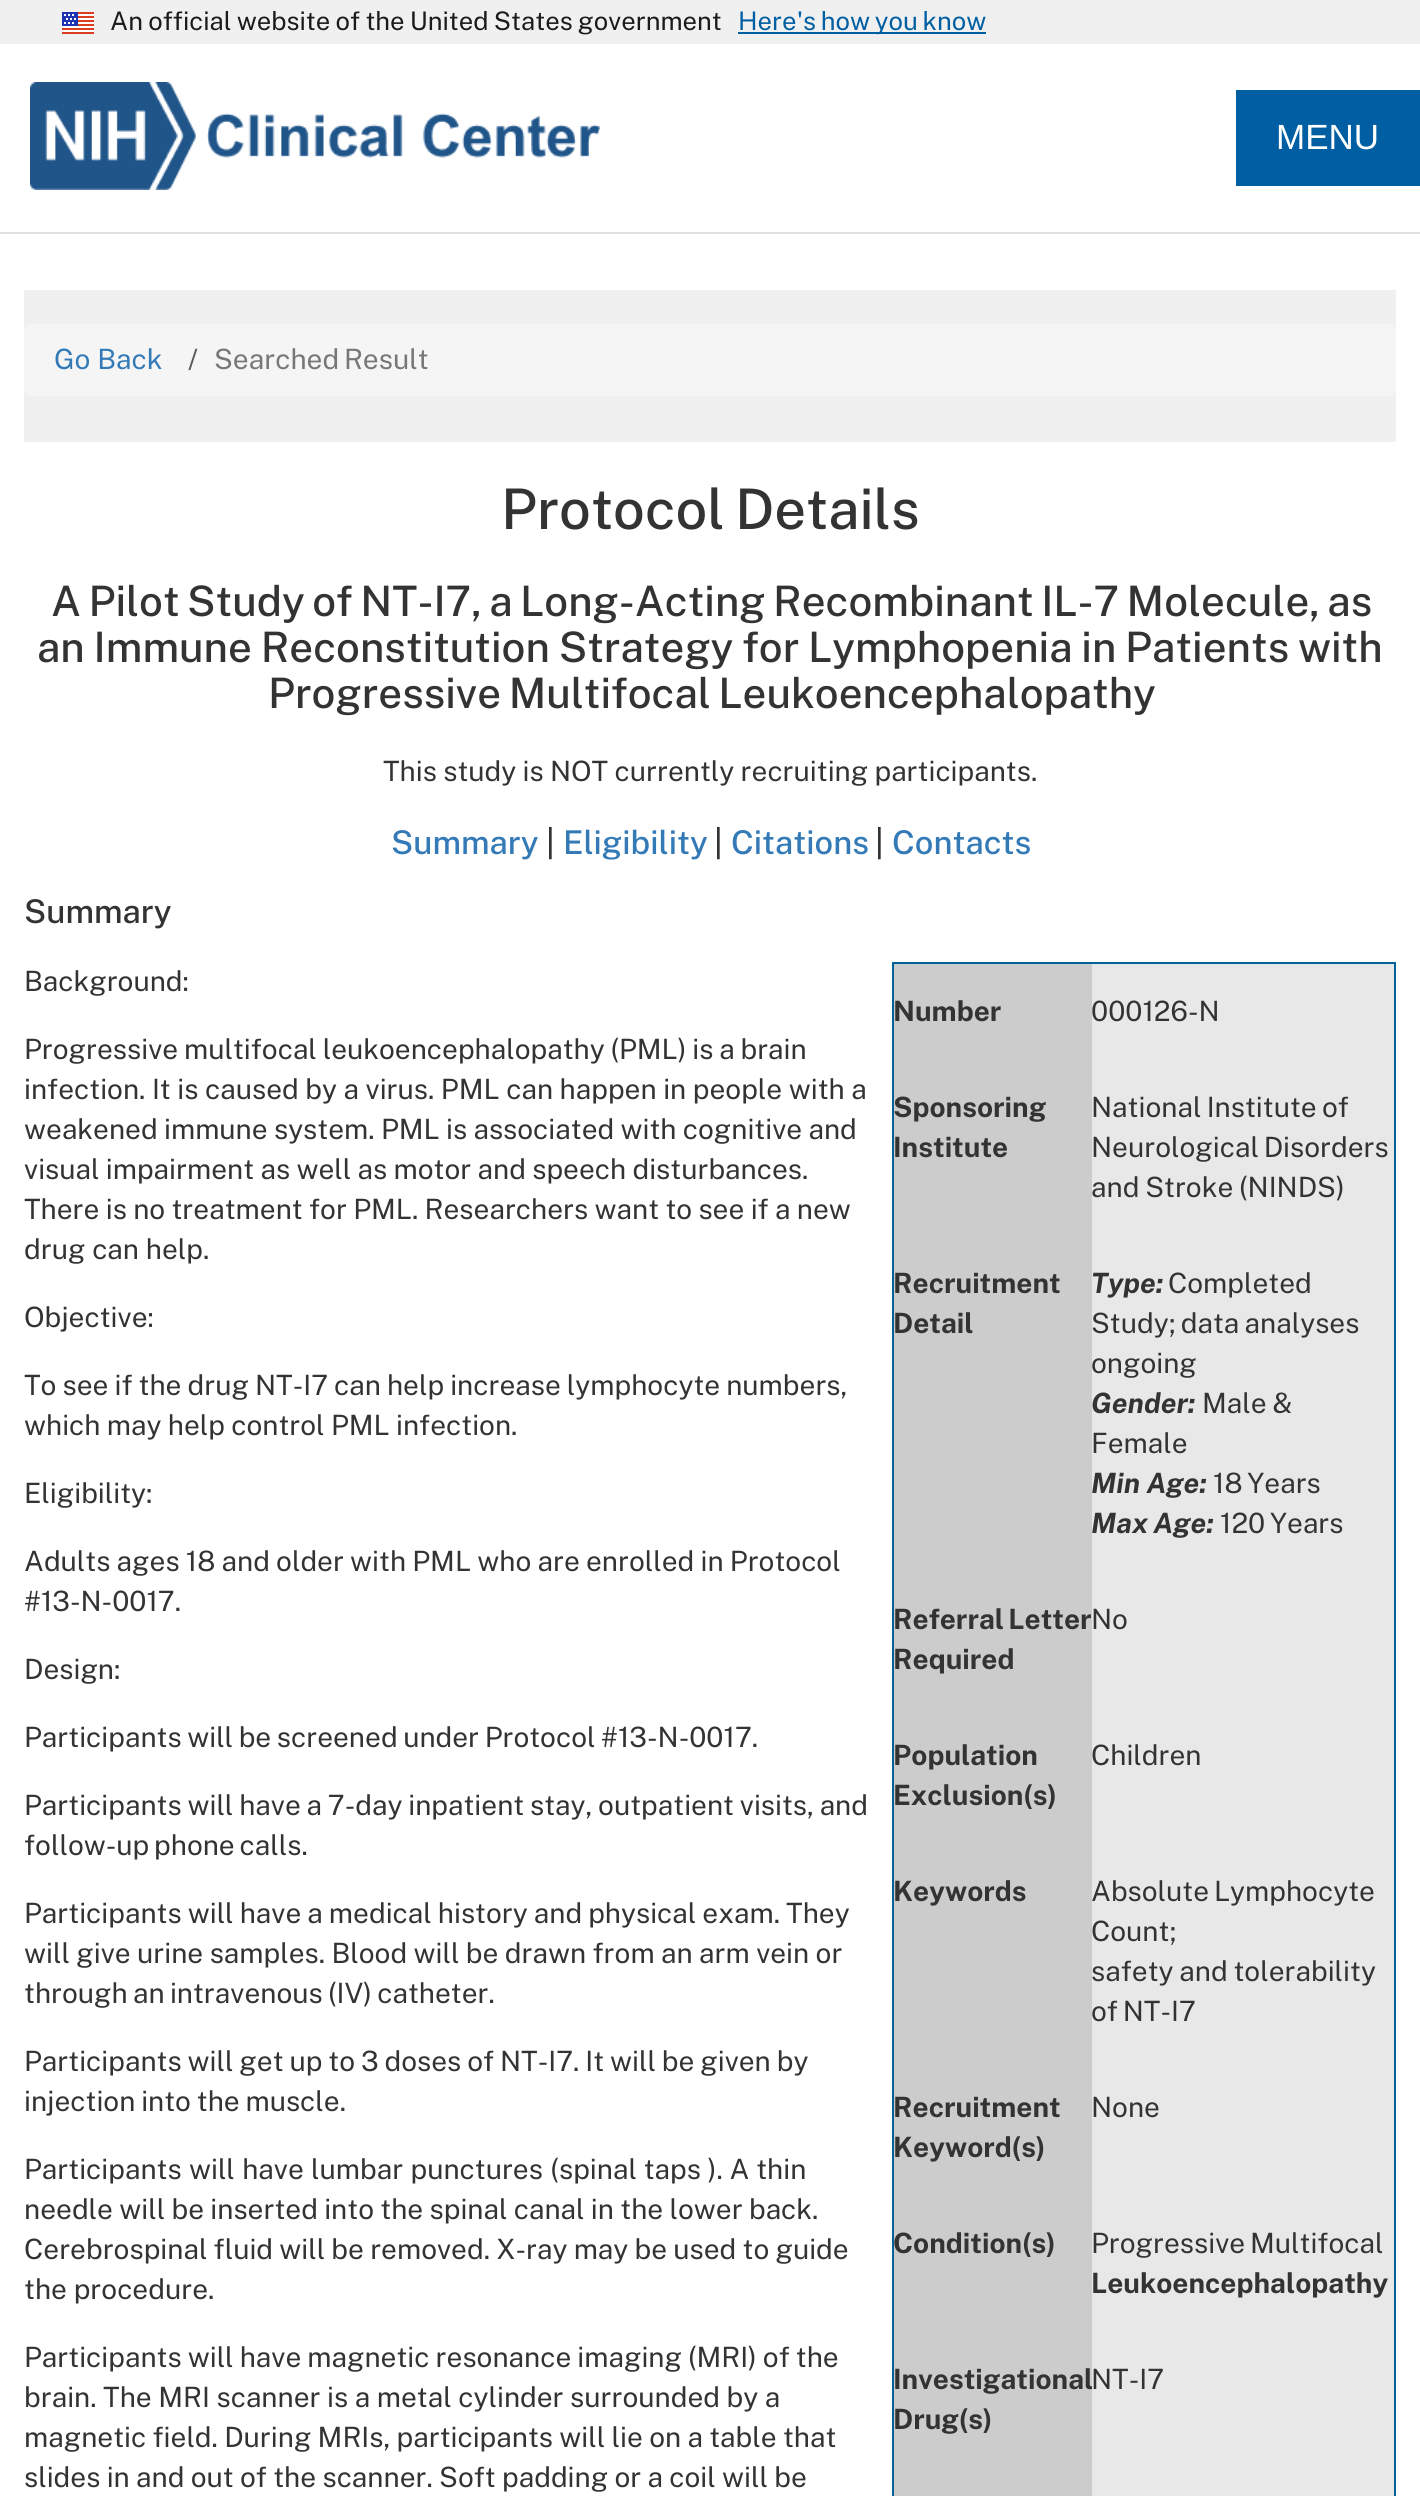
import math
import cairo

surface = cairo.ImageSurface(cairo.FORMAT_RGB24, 1420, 2496)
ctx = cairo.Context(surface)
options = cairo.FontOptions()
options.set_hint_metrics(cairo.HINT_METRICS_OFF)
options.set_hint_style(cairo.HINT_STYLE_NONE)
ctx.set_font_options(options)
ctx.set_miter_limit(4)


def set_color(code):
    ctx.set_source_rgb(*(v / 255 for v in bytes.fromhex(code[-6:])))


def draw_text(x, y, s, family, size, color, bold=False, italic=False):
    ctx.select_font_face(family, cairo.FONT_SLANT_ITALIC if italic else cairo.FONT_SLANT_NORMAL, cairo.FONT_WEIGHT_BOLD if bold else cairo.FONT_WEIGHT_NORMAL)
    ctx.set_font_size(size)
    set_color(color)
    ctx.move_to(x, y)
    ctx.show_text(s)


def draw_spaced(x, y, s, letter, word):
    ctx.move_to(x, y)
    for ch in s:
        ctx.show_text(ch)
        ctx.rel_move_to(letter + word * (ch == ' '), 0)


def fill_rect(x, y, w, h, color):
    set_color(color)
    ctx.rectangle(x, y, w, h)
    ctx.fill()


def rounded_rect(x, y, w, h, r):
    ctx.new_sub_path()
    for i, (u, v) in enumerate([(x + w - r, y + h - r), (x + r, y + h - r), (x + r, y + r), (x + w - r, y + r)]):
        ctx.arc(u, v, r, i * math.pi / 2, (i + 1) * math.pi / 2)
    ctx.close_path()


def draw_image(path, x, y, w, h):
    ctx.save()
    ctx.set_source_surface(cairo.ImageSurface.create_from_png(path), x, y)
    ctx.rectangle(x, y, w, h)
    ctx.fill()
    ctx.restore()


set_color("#ffffff")
ctx.paint()
fill_rect(0, 0, 1420, 44, "#f0f0f0")
draw_image("assets/img1.png", 62, 12, 32, 22)
ctx.select_font_face("Public Sans")
ctx.set_font_size(25.6)
set_color("#1b1b1b")
draw_spaced(110, 30, "An official website of the United States government", 0, -1)
fill_rect(738, 32, 248, 2, "#005ea2")
draw_spaced(738, 30, "Here's how you know", 0, -1.5)
fill_rect(0, 232, 1420, 2, "#dfe1e2")
draw_image("assets/img2.png", 30, 82, 570, 108)
fill_rect(1236, 90, 184, 96, "#005ea2")
draw_text(1276, 149, "MENU", "Liberation Sans", 35, "#ffffff")
fill_rect(24, 290, 1372, 152, "#f0f0f0")
set_color("#f5f5f5")
rounded_rect(24, 324, 1372, 72, 8)
ctx.fill()
draw_text(54, 369, "Go Back", "Public Sans", 28, "#337ab7")
draw_text(188, 369, "/", "Public Sans", 28, "#56595c")
set_color("#777777")
draw_spaced(214, 369, "Searched Result", 0, -2)
ctx.select_font_face("Public Sans Medium")
ctx.set_font_size(56)
set_color("#333333")
draw_spaced(501, 529, "Protocol Details", 0, -3)
ctx.set_font_size(42)
draw_spaced(51, 616, "A Pilot Study of NT-I7, a Long-Acting Recombinant IL-7 Molecule, as", 0, -2.5)
draw_spaced(37, 662, "an Immune Reconstitution Strategy for Lymphopenia in Patients with", 0, -1.25)
draw_spaced(268, 708, "Progressive Multifocal Leukoencephalopathy", 0, -2.5)
ctx.select_font_face("Public Sans")
ctx.set_font_size(28)
draw_spaced(383, 781, "This study is NOT currently recruiting participants.", 0, -0.5)
draw_text(391, 854, "Summary", "Public Sans Medium", 32.75, "#337ab7")
draw_text(546, 854, "|", "Public Sans Medium", 32.75, "#333333")
draw_text(563, 854, "Eligibility", "Public Sans Medium", 32.75, "#337ab7")
draw_text(714, 854, "|", "Public Sans Medium", 32.75, "#333333")
draw_text(731, 854, "Citations", "Public Sans Medium", 32.75, "#337ab7")
draw_text(875, 854, "|", "Public Sans Medium", 32.75, "#333333")
draw_text(892, 854, "Contacts", "Public Sans Medium", 32.75, "#337ab7")
draw_text(24, 923, "Summary", "Public Sans Medium", 32.75, "#333333")
draw_text(24, 991, "Background:", "Public Sans", 28, "#333333")
draw_spaced(24, 1059, "Progressive multifocal leukoencephalopathy (PML) is a brain", 0, -1)
draw_spaced(24, 1099, "infection. It is caused by a virus. PML can happen in people with a", 0, -0.25)
draw_spaced(24, 1139, "weakened immune system. PML is associated with cognitive and", 0, -0.5)
draw_spaced(24, 1179, "visual impairment as well as motor and speech disturbances.", 0, -0.5)
draw_spaced(24, 1219, "There is no treatment for PML. Researchers want to see if a new", 0, -0.5)
draw_text(24, 1259, "drug can help.", "Public Sans", 28, "#333333")
fill_rect(892, 962, 504, 2, "#006295")
fill_rect(1394, 962, 2, 1534, "#006295")
fill_rect(892, 962, 2, 1534, "#006295")
fill_rect(894, 964, 198, 1532, "#cccccc")
draw_text(893, 1021, "Number", "Public Sans", 28, "#333333", bold=True)
fill_rect(1092, 964, 302, 1532, "#e8e8e8")
draw_text(1091, 1021, "000126-N", "Public Sans", 28, "#333333")
draw_text(893, 1117, "Sponsoring", "Public Sans", 28, "#333333", bold=True)
draw_text(893, 1157, "Institute", "Public Sans", 28, "#333333", bold=True)
ctx.select_font_face("Public Sans")
draw_spaced(1091, 1117, "National Institute of", 0, -1.5)
draw_spaced(1091, 1157, "Neurological Disorders", 0, -2)
draw_spaced(1091, 1197, "and Stroke (NINDS)", 0, -1)
draw_text(893, 1293, "Recruitment", "Public Sans", 28, "#333333", bold=True)
draw_text(893, 1333, "Detail", "Public Sans", 28, "#333333", bold=True)
draw_text(1091, 1293, "Type:", "Public Sans", 28, "#333333", bold=True, italic=True)
draw_text(1168, 1293, "Completed", "Public Sans", 28, "#333333")
draw_spaced(1091, 1333, "Study; data analyses", 0, -1.5)
draw_text(1091, 1373, "ongoing", "Public Sans", 28, "#333333")
draw_text(1091, 1413, "Gender:", "Public Sans", 28, "#333333", bold=True, italic=True)
ctx.select_font_face("Public Sans")
draw_spaced(1202, 1413, "Male &", 0, -1)
draw_text(1091, 1453, "Female", "Public Sans", 28, "#333333")
draw_text(1091, 1493, "Min Age:", "Public Sans", 28, "#333333", bold=True, italic=True)
ctx.select_font_face("Public Sans")
draw_spaced(1213, 1493, "18 Years", 0, -2)
ctx.select_font_face("Public Sans", cairo.FONT_SLANT_ITALIC, cairo.FONT_WEIGHT_BOLD)
draw_spaced(1091, 1533, "Max Age:", 0, -1)
ctx.select_font_face("Public Sans")
draw_spaced(1220, 1533, "120 Years", 0, -2)
ctx.select_font_face("Public Sans", cairo.FONT_SLANT_NORMAL, cairo.FONT_WEIGHT_BOLD)
draw_spaced(893, 1629, "Referral Letter", 0, -2)
draw_text(893, 1669, "Required", "Public Sans", 28, "#333333", bold=True)
draw_text(1091, 1629, "No", "Public Sans", 28, "#333333")
draw_text(893, 1765, "Population", "Public Sans", 28, "#333333", bold=True)
draw_text(893, 1805, "Exclusion(s)", "Public Sans", 28, "#333333", bold=True)
draw_text(1091, 1765, "Children", "Public Sans", 28, "#333333")
draw_text(893, 1901, "Keywords", "Public Sans", 28, "#333333", bold=True)
ctx.select_font_face("Public Sans")
draw_spaced(1091, 1901, "Absolute Lymphocyte", 0, -2)
draw_text(1091, 1941, "Count;", "Public Sans", 28, "#333333")
draw_spaced(1091, 1981, "safety and tolerability", 0, -1)
draw_spaced(1091, 2021, "of NT-I7", 0, -2)
draw_text(893, 2117, "Recruitment", "Public Sans", 28, "#333333", bold=True)
draw_text(893, 2157, "Keyword(s)", "Public Sans", 28, "#333333", bold=True)
draw_text(1091, 2117, "None", "Public Sans", 28, "#333333")
draw_text(893, 2253, "Condition(s)", "Public Sans", 28, "#333333", bold=True)
ctx.select_font_face("Public Sans")
draw_spaced(1091, 2253, "Progressive Multifocal", 0, -2)
draw_text(1091, 2293, "Leukoencephalopathy", "Public Sans", 28, "#333333", bold=True)
draw_text(893, 2389, "Investigational", "Public Sans", 28, "#333333", bold=True)
draw_text(893, 2429, "Drug(s)", "Public Sans", 28, "#333333", bold=True)
draw_text(1091, 2389, "NT-I7", "Public Sans", 28, "#333333")
draw_text(24, 1327, "Objective:", "Public Sans", 28, "#333333")
draw_spaced(24, 1395, "To see if the drug NT-I7 can help increase lymphocyte numbers,", 0, -0.75)
draw_spaced(24, 1435, "which may help control PML infection.", 0, -0.5)
draw_text(24, 1503, "Eligibility:", "Public Sans", 28, "#333333")
draw_spaced(24, 1571, "Adults ages 18 and older with PML who are enrolled in Protocol", 0, -0.6)
draw_text(24, 1611, "#13-N-0017.", "Public Sans", 28, "#333333")
draw_text(24, 1679, "Design:", "Public Sans", 28, "#333333")
draw_spaced(24, 1747, "Participants will be screened under Protocol #13-N-0017.", 0, -1.25)
draw_spaced(24, 1815, "Participants will have a 7-day inpatient stay, outpatient visits, and", 0, -1)
draw_spaced(24, 1855, "follow-up phone calls.", 0, -2)
draw_spaced(24, 1923, "Participants will have a medical history and physical exam. They", 0, -0.75)
draw_spaced(24, 1963, "will give urine samples. Blood will be drawn from an arm vein or", 0, -0.4)
draw_spaced(24, 2003, "through an intravenous (IV) catheter.", 0, -1.5)
draw_spaced(24, 2071, "Participants will get up to 3 doses of NT-I7. It will be given by", 0, -0.9)
draw_spaced(24, 2111, "injection into the muscle.", 0, -1)
draw_spaced(24, 2179, "Participants will have lumbar punctures (", 0, 0.5)
draw_text(559, 2179, "spinal taps ). A thin", "Public Sans", 28, "#333333")
draw_spaced(24, 2219, "needle will be inserted into the spinal canal in the lower back.", 0, -0.5)
draw_spaced(24, 2259, "Cerebrospinal fluid will be removed. X-ray may be used to guide", 0, -0.6)
draw_text(24, 2299, "the procedure.", "Public Sans", 28, "#333333")
draw_spaced(24, 2367, "Participants will have magnetic resonance imaging (MRI) of the", 0, -0.75)
draw_spaced(24, 2407, "brain. The MRI scanner is a metal cylinder surrounded by a", 0, -0.25)
draw_spaced(24, 2447, "magnetic field. During MRIs, participants will lie on a table that", 0, -0.5)
draw_spaced(24, 2487, "slides in and out of the scanner. Soft padding or a coil will be", 0, -0.5)
surface.write_to_png("output.png")
